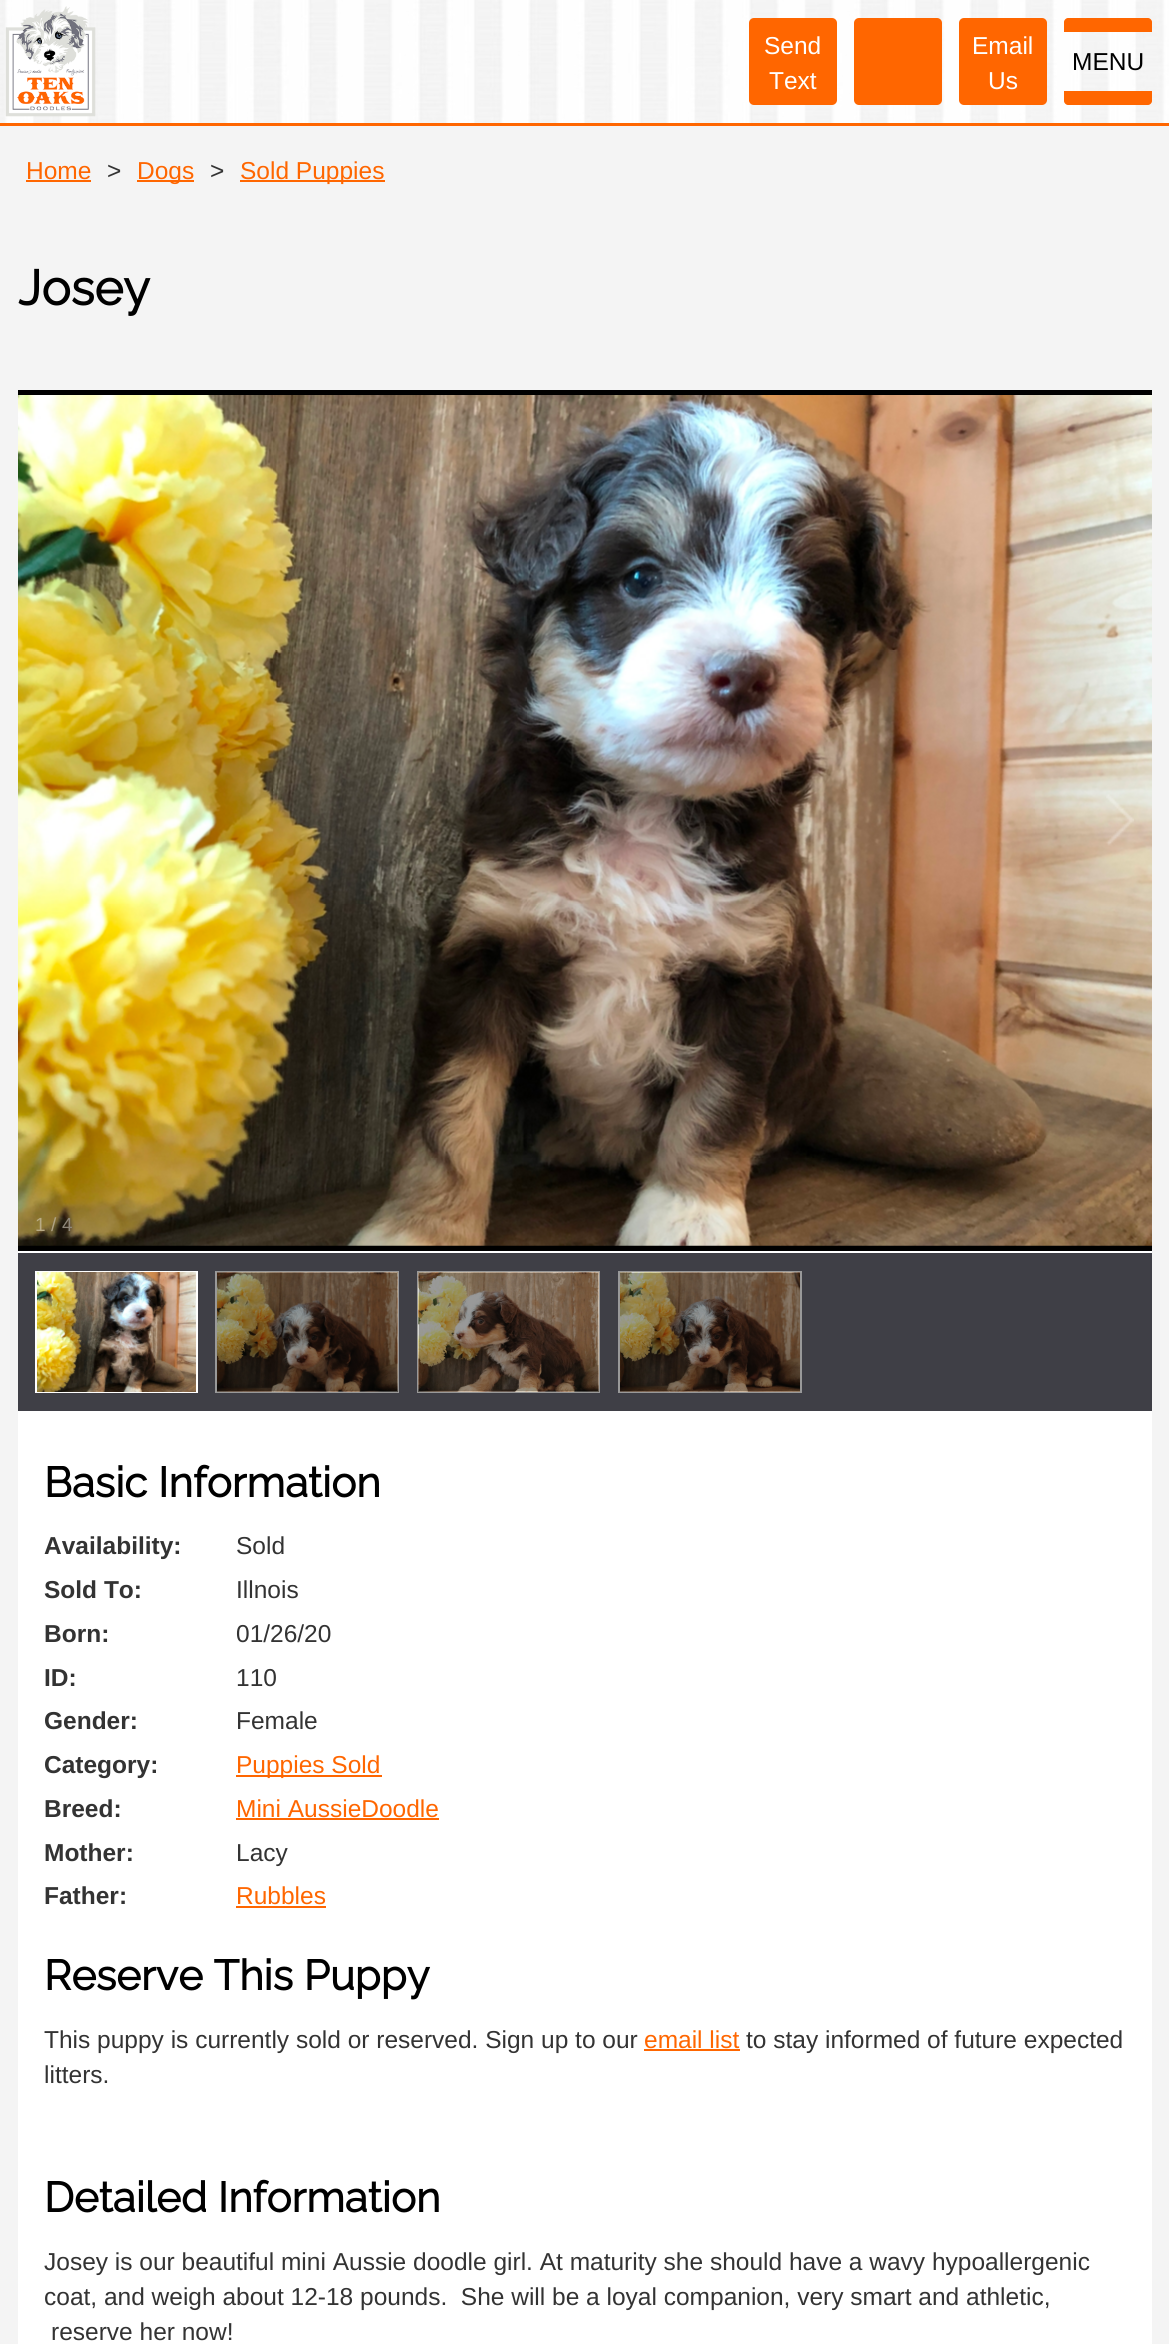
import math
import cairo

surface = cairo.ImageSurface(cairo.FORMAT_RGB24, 1169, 2344)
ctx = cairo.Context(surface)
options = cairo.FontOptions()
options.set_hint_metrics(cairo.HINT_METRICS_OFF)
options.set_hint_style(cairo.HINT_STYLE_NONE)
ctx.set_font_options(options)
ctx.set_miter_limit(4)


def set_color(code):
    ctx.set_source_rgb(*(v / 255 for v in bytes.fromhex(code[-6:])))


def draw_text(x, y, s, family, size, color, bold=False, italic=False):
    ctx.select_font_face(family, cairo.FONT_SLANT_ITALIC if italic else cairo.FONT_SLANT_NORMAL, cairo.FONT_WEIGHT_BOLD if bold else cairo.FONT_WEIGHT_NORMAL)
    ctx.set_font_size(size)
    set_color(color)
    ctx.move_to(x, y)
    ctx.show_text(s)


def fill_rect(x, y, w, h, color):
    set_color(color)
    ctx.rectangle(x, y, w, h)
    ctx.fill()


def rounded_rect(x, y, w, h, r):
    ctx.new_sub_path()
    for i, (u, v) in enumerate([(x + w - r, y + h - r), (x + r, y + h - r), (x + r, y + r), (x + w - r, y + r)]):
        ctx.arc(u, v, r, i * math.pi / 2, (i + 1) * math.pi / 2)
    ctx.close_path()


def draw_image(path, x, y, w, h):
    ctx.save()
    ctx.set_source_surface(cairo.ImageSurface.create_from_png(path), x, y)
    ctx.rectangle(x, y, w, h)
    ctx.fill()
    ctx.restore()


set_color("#ffffff")
ctx.paint()
draw_image("assets/img1.png", 0, 0, 1169, 123)
fill_rect(0, 123, 1169, 3, "#ff6600")
draw_image("assets/img2.png", 5, 6, 91, 111)
rounded_rect(749, 18, 88, 87, 5)
ctx.fill()
draw_text(764, 54, "Send", "Liberation Sans", 24.5, "#ffffff")
draw_text(769, 89, "Text", "Liberation Sans", 24.5, "#ffffff")
set_color("#ff6600")
rounded_rect(854, 18, 88, 87, 5)
ctx.fill()
rounded_rect(959, 18, 88, 87, 5)
ctx.fill()
draw_text(972, 54, "Email", "Liberation Sans", 24.5, "#ffffff")
draw_text(988, 89, "Us", "Liberation Sans", 24.5, "#ffffff")
set_color("#ff6600")
ctx.new_path()
ctx.move_to(1068, 18)
ctx.line_to(1148, 18)
ctx.curve_to(1150, 18, 1152, 20, 1152, 22)
ctx.line_to(1152, 32)
ctx.line_to(1064, 32)
ctx.line_to(1064, 22)
ctx.curve_to(1064, 20, 1066, 18, 1068, 18)
ctx.close_path()
ctx.fill()
draw_text(1072, 70, "MENU", "Liberation Sans", 24.5, "#000000")
set_color("#ff6600")
ctx.new_path()
ctx.move_to(1064, 91)
ctx.line_to(1152, 91)
ctx.line_to(1152, 101)
ctx.curve_to(1152, 103, 1150, 105, 1148, 105)
ctx.line_to(1068, 105)
ctx.curve_to(1066, 105, 1064, 103, 1064, 101)
ctx.close_path()
ctx.fill()
fill_rect(0, 126, 1169, 2218, "#f4f4f4")
draw_text(26, 179, "Home", "Liberation Sans", 24.5, "#ff6600")
fill_rect(26, 180, 65, 2, "#ff6600")
draw_text(107, 179, ">", "Liberation Sans", 24.5, "#333333")
fill_rect(137, 180, 57, 2, "#ff6600")
draw_text(137, 179, "Dogs", "Liberation Sans", 24.5, "#ff6600")
draw_text(210, 179, ">", "Liberation Sans", 24.5, "#333333")
fill_rect(240, 180, 145, 2, "#ff6600")
draw_text(240, 179, "Sold Puppies", "Liberation Sans", 24.5, "#ff6600")
draw_text(18, 305, "Josey", "Raleway", 49, "#000000", bold=True)
fill_rect(18, 1411, 1134, 933, "#ffffff")
fill_rect(18, 1253, 1134, 158, "#3f3f46")
fill_rect(18, 390, 1134, 861, "#000000")
fill_rect(18, 1251, 1134, 2, "#ffffff")
draw_image("assets/img3.png", 18, 395, 1134, 851)
draw_image("assets/img4.png", 35, 794, 29, 28)
draw_image("assets/img5.png", 1106, 794, 28, 52)
draw_text(35, 1231, "1", "Liberation Sans", 19, "#b8ab85")
draw_text(51, 1231, "/", "Liberation Sans", 19, "#afa383")
draw_text(62, 1231, "4", "Liberation Sans", 19, "#8f8779")
ctx.rectangle(36, 1272, 161, 120)
set_color("#ffffff")
ctx.stroke()
draw_image("assets/img6.png", 37, 1272, 159, 120)
set_color("#000000")
ctx.rectangle(216, 1272, 182, 120)
ctx.fill_preserve()
set_color("#999999")
ctx.stroke()
draw_image("assets/img7.png", 217, 1272, 181, 120)
set_color("#000000")
ctx.rectangle(418, 1272, 181, 120)
ctx.fill_preserve()
set_color("#999999")
ctx.stroke()
draw_image("assets/img8.png", 418, 1272, 181, 120)
set_color("#000000")
ctx.rectangle(619, 1272, 182, 120)
ctx.fill_preserve()
set_color("#999999")
ctx.stroke()
draw_image("assets/img9.png", 620, 1272, 180, 120)
draw_text(44, 1497, "Basic Information", "Raleway", 42, "#000000", bold=True)
draw_text(44, 1554, "Availability:", "Liberation Sans", 24.5, "#333333", bold=True)
draw_text(236, 1554, "Sold", "Liberation Sans", 24.5, "#333333")
draw_text(44, 1598, "Sold To:", "Liberation Sans", 24.5, "#333333", bold=True)
draw_text(236, 1598, "Illnois", "Liberation Sans", 24.5, "#333333")
draw_text(44, 1642, "Born:", "Liberation Sans", 24.5, "#333333", bold=True)
draw_text(236, 1642, "01/26/20", "Liberation Sans", 24.5, "#333333")
draw_text(44, 1686, "ID:", "Liberation Sans", 24.5, "#333333", bold=True)
draw_text(236, 1686, "110", "Liberation Sans", 24.5, "#333333")
draw_text(44, 1729, "Gender:", "Liberation Sans", 24.5, "#333333", bold=True)
draw_text(236, 1729, "Female", "Liberation Sans", 24.5, "#333333")
draw_text(44, 1773, "Category:", "Liberation Sans", 24.5, "#333333", bold=True)
fill_rect(236, 1775, 146, 2, "#ff6600")
draw_text(236, 1773, "Puppies Sold", "Liberation Sans", 24.5, "#ff6600")
draw_text(44, 1817, "Breed:", "Liberation Sans", 24.5, "#333333", bold=True)
draw_text(236, 1817, "Mini AussieDoodle", "Liberation Sans", 24.5, "#ff6600")
fill_rect(236, 1818, 203, 2, "#ff6600")
draw_text(44, 1861, "Mother:", "Liberation Sans", 24.5, "#333333", bold=True)
draw_text(236, 1861, "Lacy", "Liberation Sans", 24.5, "#333333")
draw_text(44, 1904, "Father:", "Liberation Sans", 24.5, "#333333", bold=True)
draw_text(236, 1904, "Rubbles", "Liberation Sans", 24.5, "#ff6600")
fill_rect(236, 1906, 90, 2, "#ff6600")
draw_text(44, 1990, "Reserve This Puppy", "Raleway", 42, "#000000", bold=True)
draw_text(44, 2048, "This puppy is currently sold or reserved. Sign up to our", "Liberation Sans", 24.5, "#333333")
draw_text(644, 2048, "email list", "Liberation Sans", 24.5, "#ff6600")
fill_rect(644, 2049, 96, 2, "#ff6600")
draw_text(746, 2048, "to stay informed of future expected", "Liberation Sans", 24.5, "#333333")
draw_text(44, 2083, "litters.", "Liberation Sans", 24.5, "#333333")
draw_text(44, 2212, "Detailed Information", "Raleway", 42, "#000000", bold=True)
draw_text(44, 2270, "Josey is our beautiful mini Aussie doodle girl. At maturity she should have a wavy hypoallergenic", "Liberation Sans", 24.5, "#333333")
draw_text(44, 2305, "coat, and weigh about 12-18 pounds.  She will be a loyal companion, very smart and athletic,", "Liberation Sans", 24.5, "#333333")
draw_text(51, 2340, "reserve her now!", "Liberation Sans", 24.5, "#333333")
surface.write_to_png("output.png")
